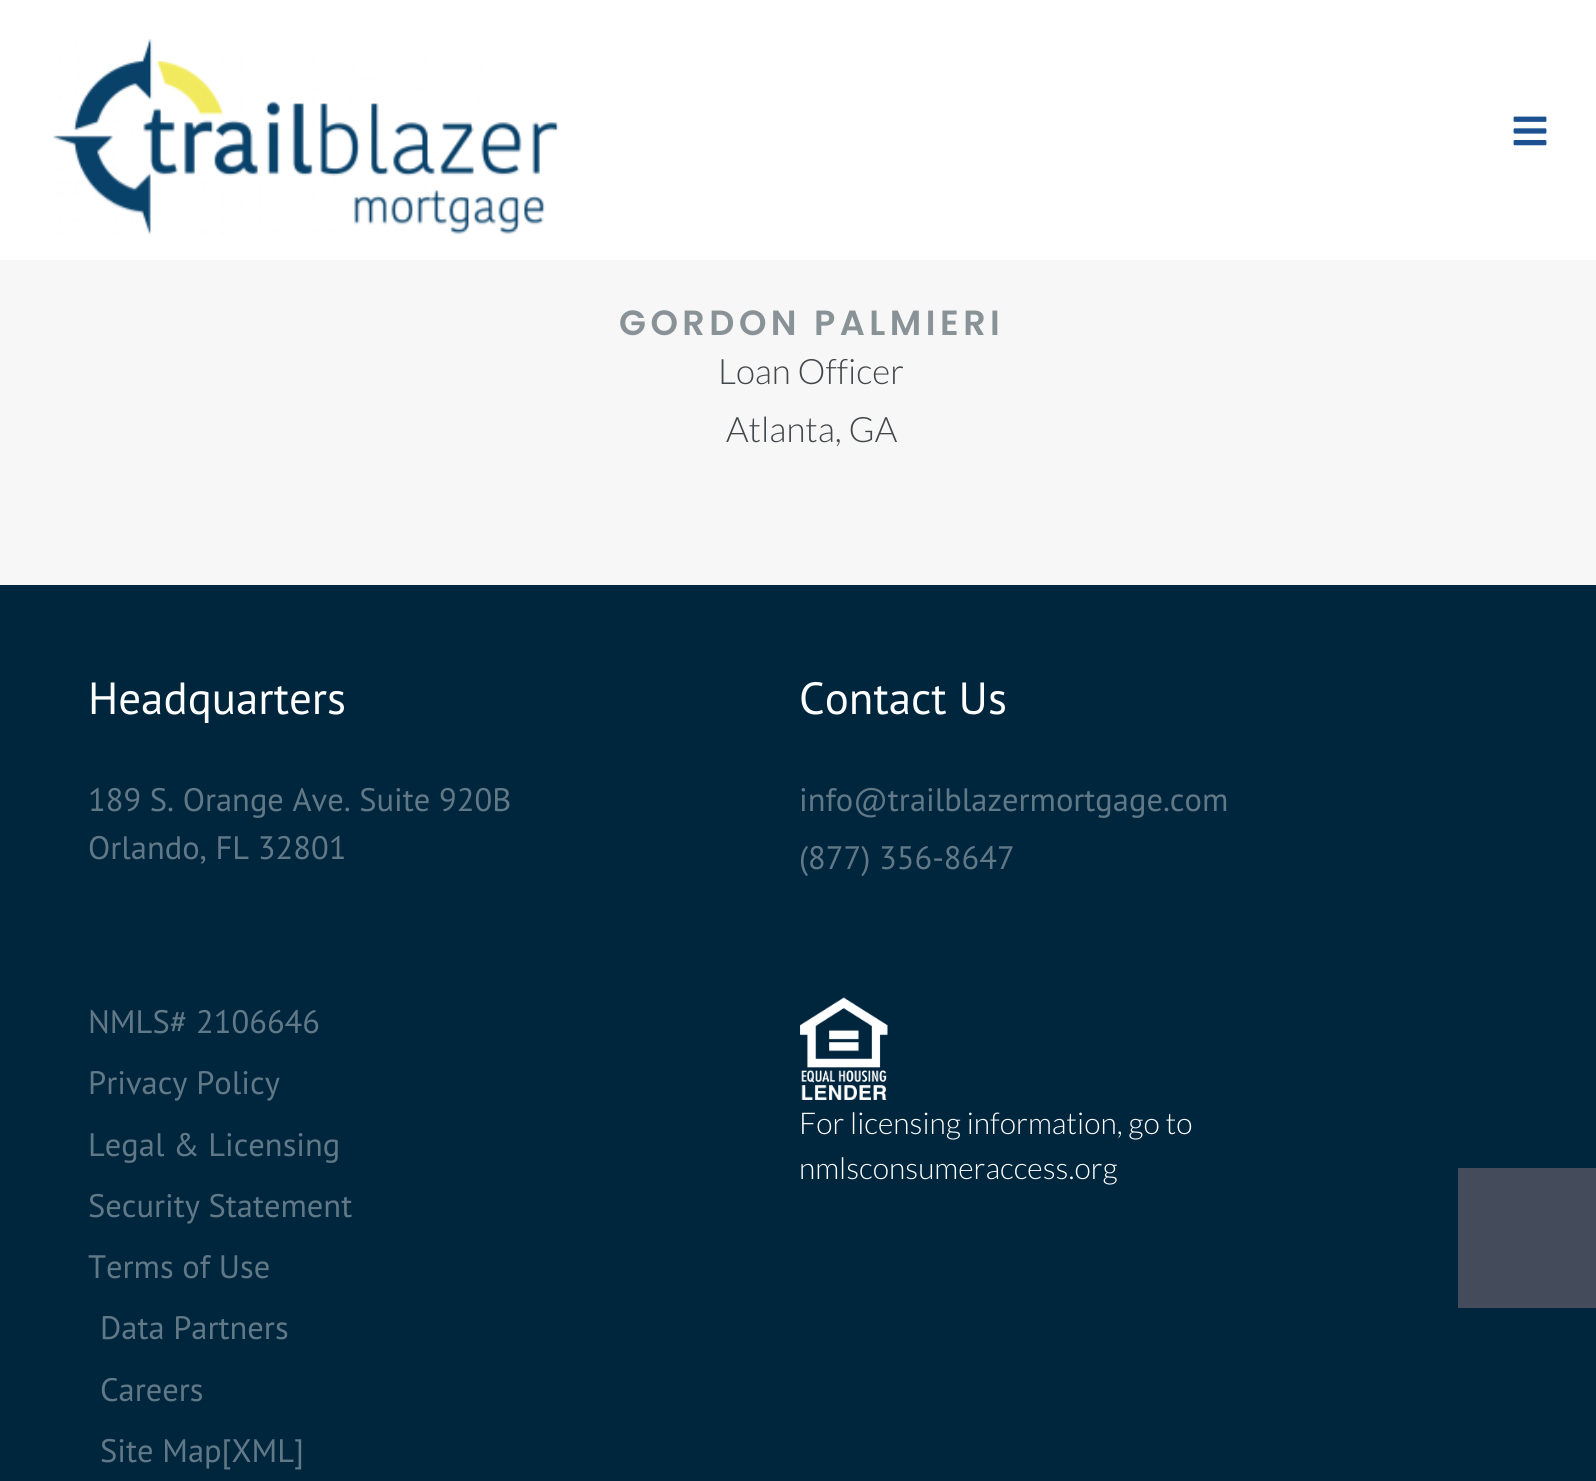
import math
import cairo

surface = cairo.ImageSurface(cairo.FORMAT_RGB24, 1596, 1481)
ctx = cairo.Context(surface)
options = cairo.FontOptions()
options.set_hint_metrics(cairo.HINT_METRICS_OFF)
options.set_hint_style(cairo.HINT_STYLE_NONE)
ctx.set_font_options(options)
ctx.set_miter_limit(4)


def set_color(code):
    ctx.set_source_rgb(*(v / 255 for v in bytes.fromhex(code[-6:])))


def draw_text(x, y, s, family, size, color, bold=False, italic=False):
    ctx.select_font_face(family, cairo.FONT_SLANT_ITALIC if italic else cairo.FONT_SLANT_NORMAL, cairo.FONT_WEIGHT_BOLD if bold else cairo.FONT_WEIGHT_NORMAL)
    ctx.set_font_size(size)
    set_color(color)
    ctx.move_to(x, y)
    ctx.show_text(s)


def draw_spaced(x, y, s, letter, word):
    ctx.move_to(x, y)
    for ch in s:
        ctx.show_text(ch)
        ctx.rel_move_to(letter + word * (ch == ' '), 0)


def fill_rect(x, y, w, h, color):
    set_color(color)
    ctx.rectangle(x, y, w, h)
    ctx.fill()


def draw_image(path, x, y, w, h):
    ctx.save()
    ctx.set_source_surface(cairo.ImageSurface.create_from_png(path), x, y)
    ctx.rectangle(x, y, w, h)
    ctx.fill()
    ctx.restore()


set_color("#f7f7f7")
ctx.paint()
fill_rect(0, 0, 1596, 260, "#ffffff")
draw_image("assets/img1.png", 53, 39, 506, 196)
draw_image("assets/img2.png", 1513, 116, 34, 30)
ctx.select_font_face("Poppins SemiBold")
ctx.set_font_size(35)
set_color("#899296")
draw_spaced(619, 335, "GORDON PALMIERI", 4.5, 0)
draw_text(718, 384, "Loan Officer", "Lato Light", 35, "#42474c")
draw_text(726, 442, "Atlanta, GA", "Lato Light", 35, "#42474c")
fill_rect(0, 585, 1596, 896, "#00263e")
draw_text(88, 714, "Headquarters", "PT Sans", 45, "#ffffff")
draw_text(88, 811, "189 S. Orange Ave. Suite 920B", "PT Sans", 32.5, "#617887")
draw_text(88, 859, "Orlando, FL 32801", "PT Sans", 32.5, "#617887")
draw_text(799, 714, "Contact Us", "PT Sans", 45, "#ffffff")
draw_text(799, 811, "info@trailblazermortgage.com", "PT Sans", 32.5, "#617887")
draw_text(799, 869, "(877) 356-8647", "PT Sans", 32.5, "#617887")
draw_text(88, 1033, "NMLS# 2106646", "PT Sans", 32.5, "#617887")
draw_text(88, 1094, "Privacy Policy", "PT Sans", 32.5, "#617887")
draw_text(88, 1156, "Legal & Licensing", "PT Sans", 32.5, "#617887")
draw_text(88, 1217, "Security Statement", "PT Sans", 32.5, "#617887")
draw_text(88, 1278, "Terms of Use", "PT Sans", 32.5, "#617887")
draw_text(100, 1339, "Data Partners", "PT Sans", 32.5, "#617887")
draw_text(100, 1401, "Careers", "PT Sans", 32.5, "#617887")
draw_text(100, 1462, "Site Map[XML]", "PT Sans", 32.5, "#617887")
draw_image("assets/img3.png", 800, 997, 88, 103)
draw_text(799, 1134, "For licensing information, go to", "Lato Light", 30, "#ffffff")
draw_text(799, 1179, "nmlsconsumeraccess.org", "Lato Light", 30, "#ffffff")
fill_rect(1458, 1168, 138, 140, "#444c5c")
surface.write_to_png("output.png")
